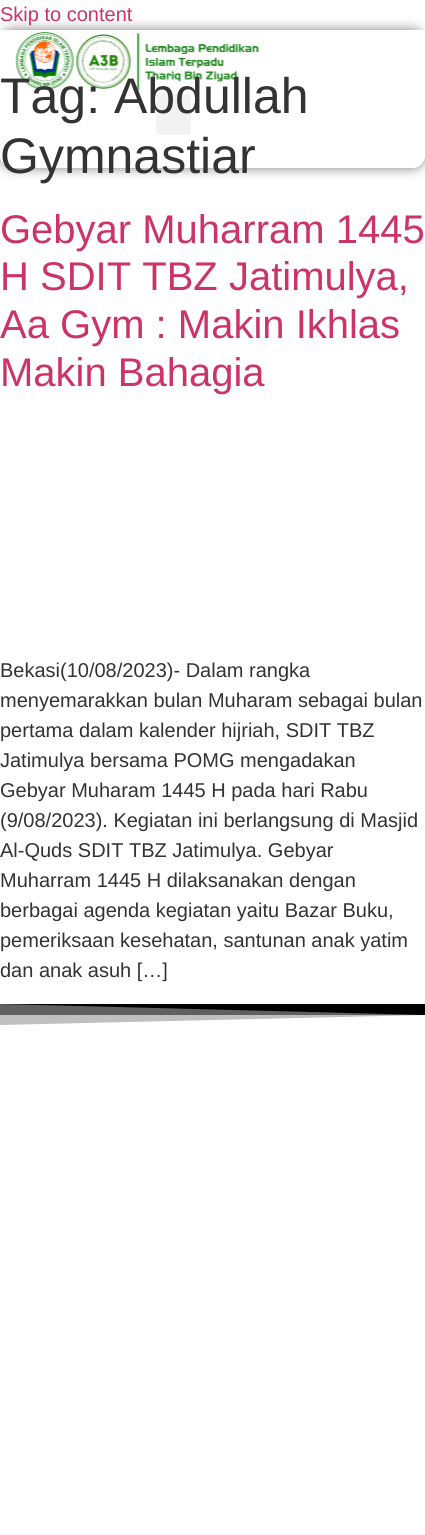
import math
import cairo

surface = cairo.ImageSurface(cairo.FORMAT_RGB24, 425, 1535)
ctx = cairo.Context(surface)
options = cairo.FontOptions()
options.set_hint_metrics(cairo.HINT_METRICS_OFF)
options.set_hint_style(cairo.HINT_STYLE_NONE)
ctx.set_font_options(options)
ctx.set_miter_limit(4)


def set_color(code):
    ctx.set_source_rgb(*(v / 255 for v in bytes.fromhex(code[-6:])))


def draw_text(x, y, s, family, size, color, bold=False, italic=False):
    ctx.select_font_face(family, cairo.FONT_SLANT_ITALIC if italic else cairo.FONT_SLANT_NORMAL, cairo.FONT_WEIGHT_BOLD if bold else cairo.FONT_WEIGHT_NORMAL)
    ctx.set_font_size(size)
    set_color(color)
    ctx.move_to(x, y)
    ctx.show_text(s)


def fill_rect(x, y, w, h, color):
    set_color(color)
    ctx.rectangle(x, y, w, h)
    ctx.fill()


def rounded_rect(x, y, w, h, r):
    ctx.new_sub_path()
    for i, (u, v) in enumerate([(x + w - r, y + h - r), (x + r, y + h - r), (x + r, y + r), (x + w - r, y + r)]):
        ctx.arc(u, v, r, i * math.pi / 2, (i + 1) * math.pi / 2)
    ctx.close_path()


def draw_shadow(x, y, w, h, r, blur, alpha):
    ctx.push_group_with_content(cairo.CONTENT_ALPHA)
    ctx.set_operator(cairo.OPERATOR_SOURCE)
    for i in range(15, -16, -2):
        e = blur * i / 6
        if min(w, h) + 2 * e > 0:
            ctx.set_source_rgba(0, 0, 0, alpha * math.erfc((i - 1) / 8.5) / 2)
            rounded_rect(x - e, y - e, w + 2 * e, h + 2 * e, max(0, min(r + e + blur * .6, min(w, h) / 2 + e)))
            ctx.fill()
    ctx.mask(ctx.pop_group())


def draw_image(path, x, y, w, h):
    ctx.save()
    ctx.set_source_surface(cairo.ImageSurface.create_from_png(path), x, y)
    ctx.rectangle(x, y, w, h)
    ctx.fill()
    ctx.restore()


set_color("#ffffff")
ctx.paint()
fill_rect(0, 1004, 424, 11, "#808080")
ctx.save()
ctx.set_fill_rule(cairo.FILL_RULE_EVEN_ODD)
ctx.new_path()
ctx.move_to(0, 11)
ctx.line_to(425, 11)
ctx.line_to(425, 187)
ctx.line_to(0, 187)
ctx.close_path()
ctx.move_to(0, 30)
ctx.line_to(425, 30)
ctx.line_to(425, 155)
ctx.curve_to(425, 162, 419, 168, 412, 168)
ctx.line_to(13, 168)
ctx.curve_to(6, 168, 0, 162, 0, 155)
ctx.close_path()
ctx.clip()
set_color("#000000")
draw_shadow(0, 30, 425, 138, 13, 6, 0.5)
ctx.restore()
draw_text(0, 21, "Skip to content", "Liberation Sans", 20, "#cc3366")
ctx.set_source_rgba(1, 1, 1, 0.92)
ctx.new_path()
ctx.move_to(0, 30)
ctx.line_to(425, 30)
ctx.line_to(425, 155)
ctx.curve_to(425, 162, 419, 168, 412, 168)
ctx.line_to(13, 168)
ctx.curve_to(6, 168, 0, 162, 0, 155)
ctx.close_path()
ctx.fill()
draw_image("assets/img1.png", 15, 32, 245, 59)
set_color("#f2f2f2")
rounded_rect(156, 94, 35, 41, 4)
ctx.fill()
draw_text(0, 113, "Tag: Abdullah", "Liberation Sans", 50, "#333333")
draw_text(0, 173, "Gymnastiar", "Liberation Sans", 50, "#333333")
draw_text(0, 243, "Gebyar Muharram 1445", "Liberation Sans", 40, "#cc3366")
draw_text(0, 290, "H SDIT TBZ Jatimulya,", "Liberation Sans", 40, "#cc3366")
draw_text(0, 338, "Aa Gym : Makin Ikhlas", "Liberation Sans", 40, "#cc3366")
draw_text(0, 386, "Makin Bahagia", "Liberation Sans", 40, "#cc3366")
draw_text(0, 677, "Bekasi(10/08/2023)- Dalam rangka", "Liberation Sans", 20, "#333333")
draw_text(0, 707, "menyemarakkan bulan Muharam sebagai bulan", "Liberation Sans", 20, "#333333")
draw_text(0, 737, "pertama dalam kalender hijriah, SDIT TBZ", "Liberation Sans", 20, "#333333")
draw_text(0, 767, "Jatimulya bersama POMG mengadakan", "Liberation Sans", 20, "#333333")
draw_text(0, 797, "Gebyar Muharam 1445 H pada hari Rabu", "Liberation Sans", 20, "#333333")
draw_text(0, 827, "(9/08/2023). Kegiatan ini berlangsung di Masjid", "Liberation Sans", 20, "#333333")
draw_text(0, 857, "Al-Quds SDIT TBZ Jatimulya. Gebyar", "Liberation Sans", 20, "#333333")
draw_text(0, 887, "Muharram 1445 H dilaksanakan dengan", "Liberation Sans", 20, "#333333")
draw_text(0, 917, "berbagai agenda kegiatan yaitu Bazar Buku,", "Liberation Sans", 20, "#333333")
draw_text(0, 947, "pemeriksaan kesehatan, santunan anak yatim", "Liberation Sans", 20, "#333333")
draw_text(0, 977, "dan anak asuh […]", "Liberation Sans", 20, "#333333")
set_color("#000000")
ctx.new_path()
ctx.move_to(0, 1004)
ctx.line_to(425, 1004)
ctx.line_to(425, 1015)
ctx.close_path()
ctx.fill()
ctx.set_source_rgba(0, 0, 0, 0.25)
ctx.new_path()
ctx.move_to(425, 1004)
ctx.line_to(0, 1004)
ctx.line_to(0, 1025)
ctx.line_to(425, 1015)
ctx.close_path()
ctx.fill()
surface.write_to_png("output.png")
